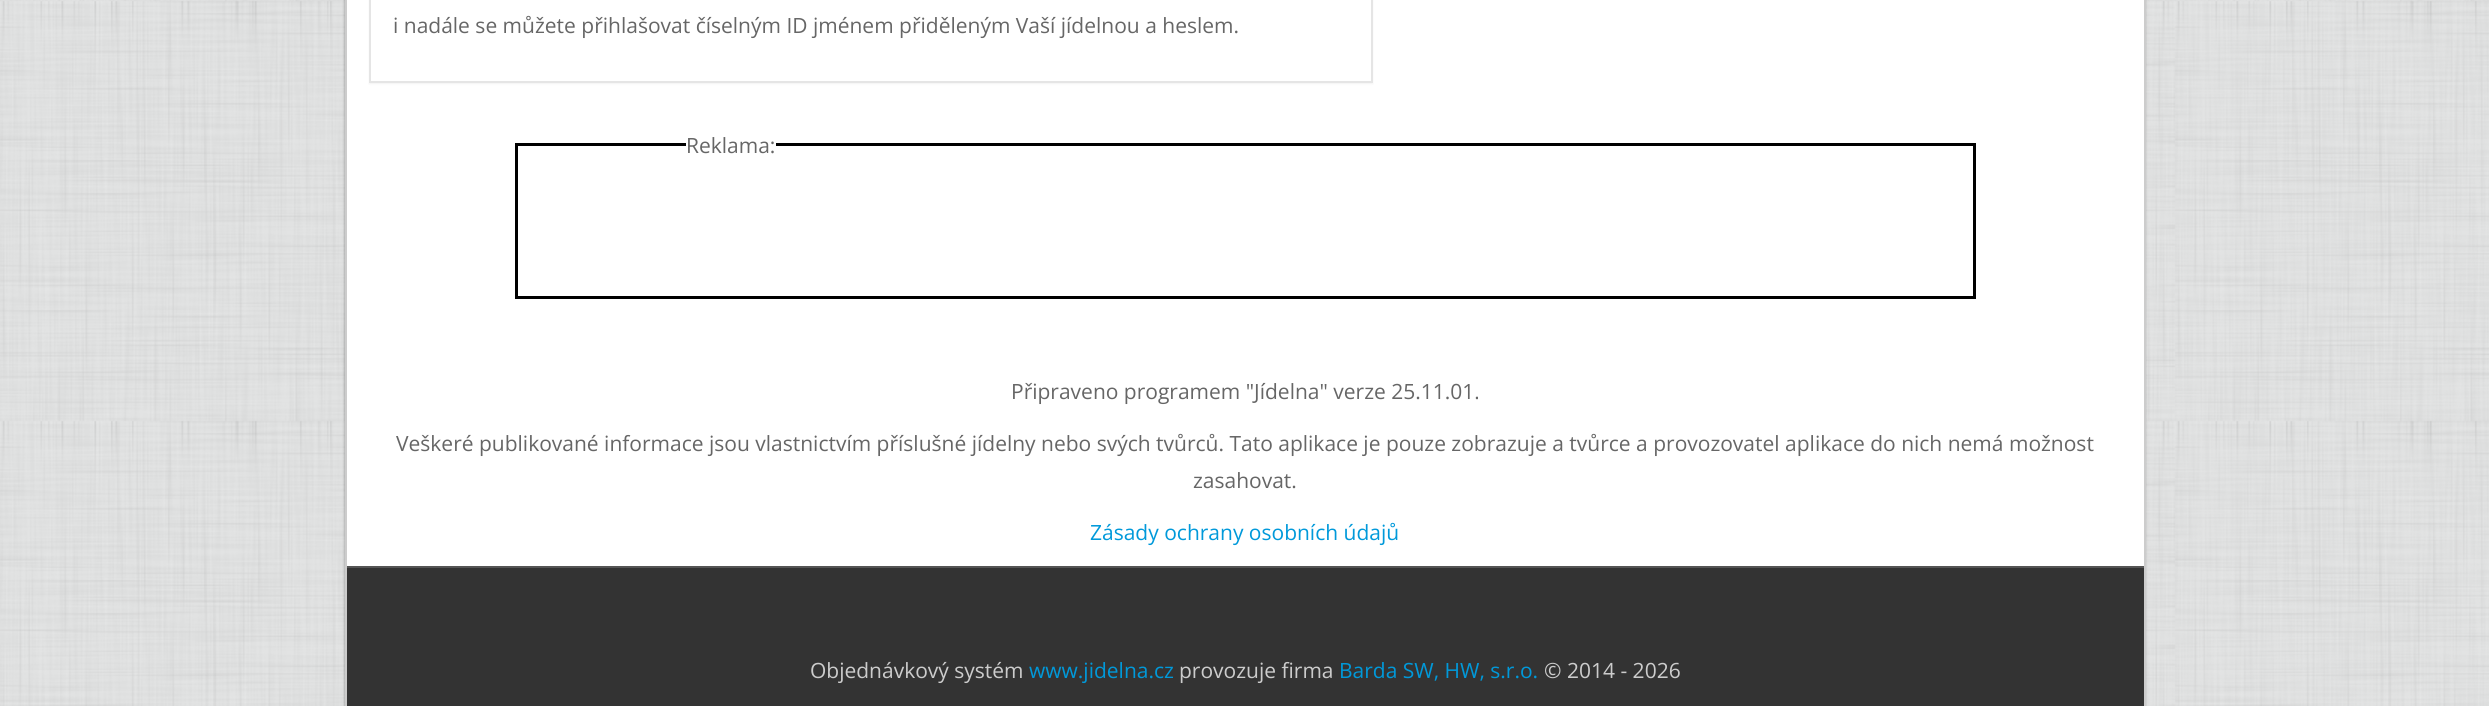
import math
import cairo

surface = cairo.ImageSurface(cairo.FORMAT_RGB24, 2489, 706)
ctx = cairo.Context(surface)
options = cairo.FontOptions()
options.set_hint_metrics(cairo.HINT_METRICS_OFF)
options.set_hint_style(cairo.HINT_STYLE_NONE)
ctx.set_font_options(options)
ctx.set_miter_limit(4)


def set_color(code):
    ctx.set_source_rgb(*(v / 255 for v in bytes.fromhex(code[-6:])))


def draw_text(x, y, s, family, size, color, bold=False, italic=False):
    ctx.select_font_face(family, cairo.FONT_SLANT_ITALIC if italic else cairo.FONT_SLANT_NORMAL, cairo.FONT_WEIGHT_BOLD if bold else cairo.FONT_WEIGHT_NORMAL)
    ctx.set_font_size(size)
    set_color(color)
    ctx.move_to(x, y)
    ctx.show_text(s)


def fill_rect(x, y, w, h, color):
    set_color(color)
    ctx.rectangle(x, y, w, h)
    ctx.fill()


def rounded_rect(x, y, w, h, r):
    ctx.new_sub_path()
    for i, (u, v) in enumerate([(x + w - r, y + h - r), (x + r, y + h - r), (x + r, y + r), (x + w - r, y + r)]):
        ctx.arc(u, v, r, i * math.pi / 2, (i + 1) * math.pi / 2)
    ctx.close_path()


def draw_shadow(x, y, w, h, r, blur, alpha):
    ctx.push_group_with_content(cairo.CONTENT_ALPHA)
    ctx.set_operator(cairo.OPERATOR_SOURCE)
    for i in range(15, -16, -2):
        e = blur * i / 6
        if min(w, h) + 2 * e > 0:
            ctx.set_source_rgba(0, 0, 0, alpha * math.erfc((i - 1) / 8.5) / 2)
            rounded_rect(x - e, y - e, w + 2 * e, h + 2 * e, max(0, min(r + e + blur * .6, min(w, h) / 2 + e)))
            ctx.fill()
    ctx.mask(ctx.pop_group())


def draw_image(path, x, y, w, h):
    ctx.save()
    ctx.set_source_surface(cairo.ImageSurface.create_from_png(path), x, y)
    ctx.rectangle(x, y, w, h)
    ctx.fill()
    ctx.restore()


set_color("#ffffff")
ctx.paint()
draw_image("assets/img1.png", 0, 0, 2489, 706)
set_color("#000000")
draw_shadow(345, -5, 1800, 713, 0, 1.5, 0.4)
fill_rect(347, 0, 1797, 566, "#ffffff")
fill_rect(2144, 0, 2, 706, "#cccccc")
fill_rect(345, 0, 2, 706, "#cccccc")
set_color("#000000")
draw_shadow(369, -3, 1004, 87, 0, 1, 0.05)
set_color("#ffffff")
ctx.rectangle(370, -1, 1002, 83)
ctx.fill_preserve()
set_color("#e5e5e5")
ctx.stroke()
draw_text(393, 33, "i nadále se můžete přihlašovat číselným ID jménem přiděleným Vaší jídelnou a heslem.", "Open Sans", 21, "#666666")
ctx.rectangle(516.5, 144.5, 1458, 153)
set_color("#000000")
ctx.set_line_width(3)
ctx.stroke()
fill_rect(686, 143, 90, 3, "#ffffff")
draw_text(686, 153, "Reklama:", "Open Sans", 21, "#666666")
draw_text(1011, 399, "Připraveno programem \"Jídelna\" verze 25.11.01.", "Open Sans", 21, "#666666")
draw_text(396, 451, "Veškeré publikované informace jsou vlastnictvím příslušné jídelny nebo svých tvůrců. Tato aplikace je pouze zobrazuje a tvůrce a provozovatel aplikace do nich nemá možnost", "Open Sans", 21, "#666666")
draw_text(1193, 488, "zasahovat.", "Open Sans", 21, "#666666")
draw_text(1090, 540, "Zásady ochrany osobních údajů", "Open Sans", 21, "#0099da")
fill_rect(347, 568, 1797, 138, "#333333")
fill_rect(347, 566, 1797, 2, "#555555")
draw_text(810, 678, "Objednávkový systém", "Open Sans", 21, "#cccccc")
draw_text(1029, 678, "www.jidelna.cz", "Open Sans", 21, "#0099da")
draw_text(1179, 678, "provozuje firma", "Open Sans", 21, "#cccccc")
draw_text(1339, 678, "Barda SW, HW, s.r.o.", "Open Sans", 21, "#0099da")
draw_text(1544, 678, "© 2014 - 2026", "Open Sans", 21, "#cccccc")
surface.write_to_png("output.png")
